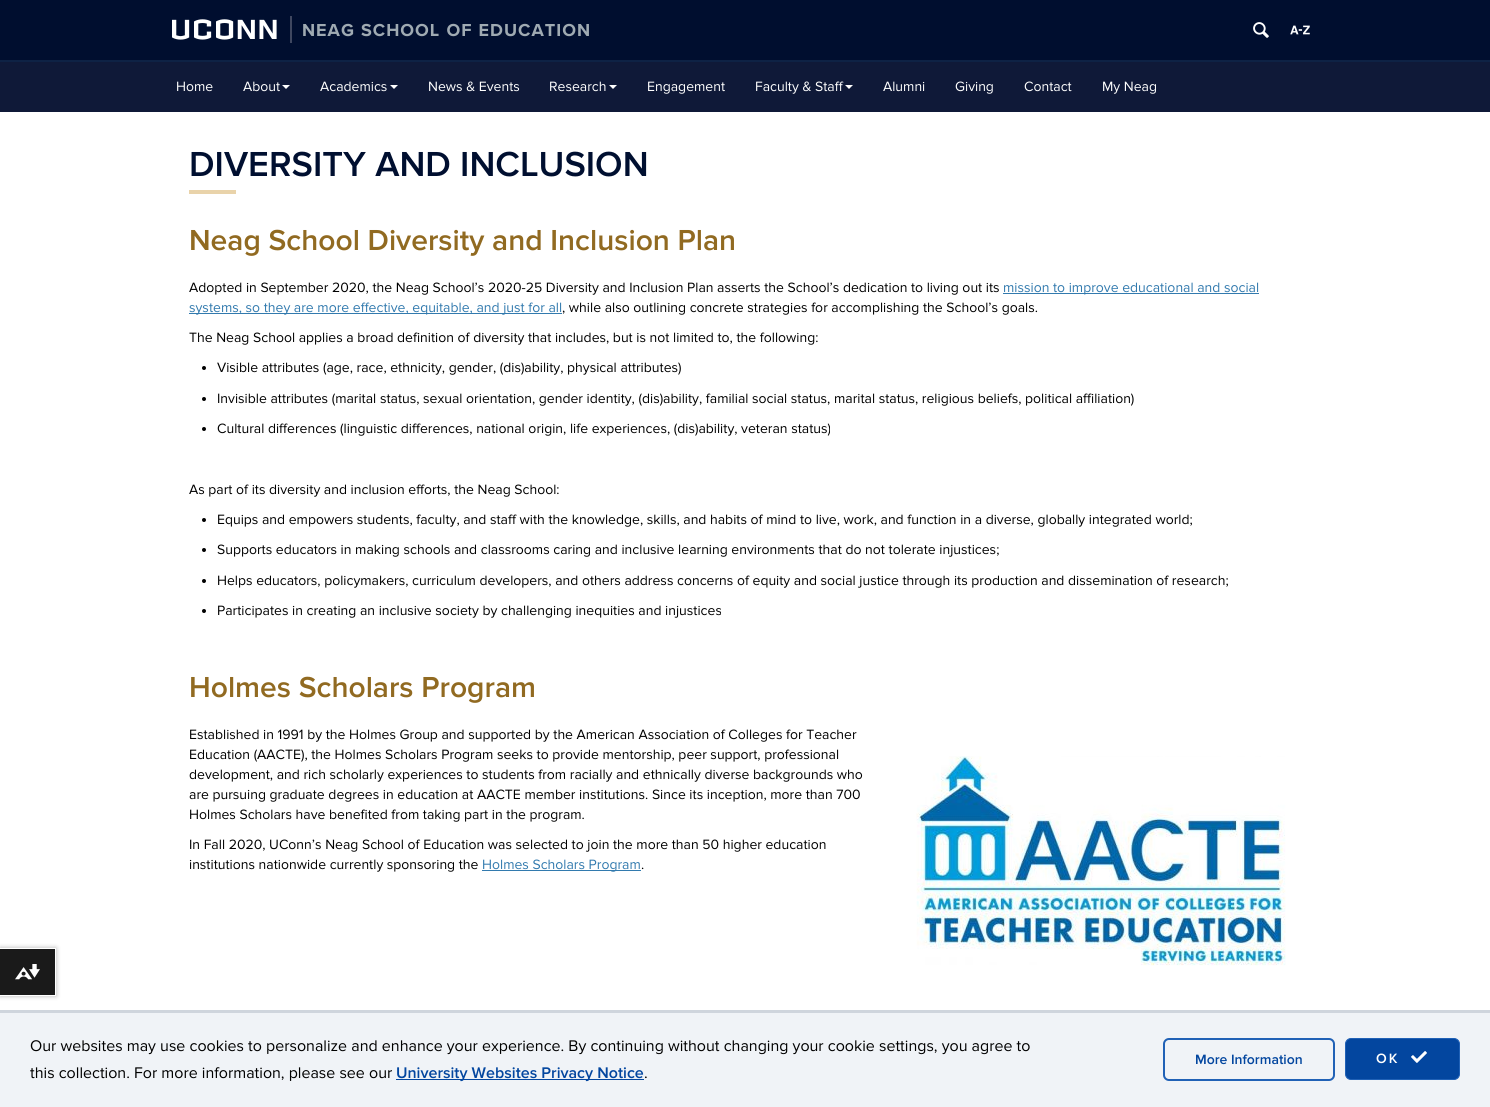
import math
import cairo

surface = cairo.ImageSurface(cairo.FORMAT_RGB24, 1490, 1107)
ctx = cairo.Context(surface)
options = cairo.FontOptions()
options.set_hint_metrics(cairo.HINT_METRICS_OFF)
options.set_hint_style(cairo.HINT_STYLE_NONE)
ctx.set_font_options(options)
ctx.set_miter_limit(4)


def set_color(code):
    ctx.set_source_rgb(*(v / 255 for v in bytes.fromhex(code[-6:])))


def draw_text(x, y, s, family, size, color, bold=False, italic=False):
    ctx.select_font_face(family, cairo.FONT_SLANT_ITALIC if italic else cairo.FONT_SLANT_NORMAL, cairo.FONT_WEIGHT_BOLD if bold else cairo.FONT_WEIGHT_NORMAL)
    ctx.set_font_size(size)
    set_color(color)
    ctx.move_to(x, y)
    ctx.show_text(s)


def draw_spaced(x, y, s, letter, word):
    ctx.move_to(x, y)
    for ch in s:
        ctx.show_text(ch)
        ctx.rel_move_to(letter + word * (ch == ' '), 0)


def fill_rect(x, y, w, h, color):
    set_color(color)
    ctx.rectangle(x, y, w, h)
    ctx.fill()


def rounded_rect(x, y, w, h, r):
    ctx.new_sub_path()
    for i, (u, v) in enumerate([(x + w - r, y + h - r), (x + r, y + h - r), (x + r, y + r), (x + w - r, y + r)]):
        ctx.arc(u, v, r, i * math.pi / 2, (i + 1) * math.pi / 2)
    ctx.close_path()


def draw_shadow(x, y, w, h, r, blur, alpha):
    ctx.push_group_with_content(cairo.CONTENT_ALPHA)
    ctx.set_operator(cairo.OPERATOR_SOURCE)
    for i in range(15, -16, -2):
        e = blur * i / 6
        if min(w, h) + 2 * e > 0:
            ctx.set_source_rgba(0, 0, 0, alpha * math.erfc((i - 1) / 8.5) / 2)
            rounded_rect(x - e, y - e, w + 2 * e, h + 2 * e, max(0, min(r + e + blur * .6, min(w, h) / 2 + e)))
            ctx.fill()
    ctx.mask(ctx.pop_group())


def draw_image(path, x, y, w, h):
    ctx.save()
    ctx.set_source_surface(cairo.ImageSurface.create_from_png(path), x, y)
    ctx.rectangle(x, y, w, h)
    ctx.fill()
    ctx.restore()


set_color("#ffffff")
ctx.paint()
fill_rect(0, 0, 1490, 60, "#000e2f")
fill_rect(0, 60, 1490, 2, "#0e2245")
ctx.select_font_face("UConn")
ctx.set_font_size(32)
set_color("#ffffff")
draw_spaced(172, 39, "UCONN", 3, 0)
ctx.select_font_face("Proxima Nova", cairo.FONT_SLANT_NORMAL, cairo.FONT_WEIGHT_BOLD)
ctx.set_font_size(18)
set_color("#9faab2")
draw_spaced(302, 36, "NEAG SCHOOL OF EDUCATION", 1, 0.5)
fill_rect(290, 16, 2, 27, "#3f4760")
draw_image("assets/img1.png", 1253, 22, 16, 16)
draw_image("assets/img2.png", 1290, 25, 20, 10)
fill_rect(0, 62, 1490, 50, "#0f1938")
draw_text(176, 91, "Home", "Proxima Nova", 14, "#ffffff")
draw_text(243, 91, "About", "Proxima Nova", 14, "#ffffff")
ctx.new_path()
ctx.move_to(282, 85)
ctx.line_to(290, 85)
ctx.line_to(286, 89)
ctx.close_path()
ctx.fill()
draw_text(320, 91, "Academics", "Proxima Nova", 14, "#ffffff")
ctx.new_path()
ctx.move_to(390, 85)
ctx.line_to(398, 85)
ctx.line_to(394, 89)
ctx.close_path()
ctx.fill()
draw_text(428, 91, "News & Events", "Proxima Nova", 14, "#ffffff")
draw_text(549, 91, "Research", "Proxima Nova", 14, "#ffffff")
ctx.new_path()
ctx.move_to(609, 85)
ctx.line_to(617, 85)
ctx.line_to(613, 89)
ctx.close_path()
ctx.fill()
draw_text(647, 91, "Engagement", "Proxima Nova", 14, "#ffffff")
draw_text(755, 91, "Faculty & Staff", "Proxima Nova", 14, "#ffffff")
ctx.new_path()
ctx.move_to(845, 85)
ctx.line_to(853, 85)
ctx.line_to(849, 89)
ctx.close_path()
ctx.fill()
draw_text(883, 91, "Alumni", "Proxima Nova", 14, "#ffffff")
draw_text(955, 91, "Giving", "Proxima Nova", 14, "#ffffff")
draw_text(1024, 91, "Contact", "Proxima Nova", 14, "#ffffff")
draw_text(1102, 91, "My Neag", "Proxima Nova", 14, "#ffffff")
draw_text(189, 176, "DIVERSITY AND INCLUSION", "Proxima Nova SemiBold", 36, "#000f30")
fill_rect(189, 190, 47, 4, "#e9d3aa")
draw_text(189, 250, "Neag School Diversity and Inclusion Plan", "Proxima Nova SemiBold", 30, "#916a21")
draw_text(189, 292, "Adopted in September 2020, the Neag School’s 2020-25 Diversity and Inclusion Plan asserts the School’s dedication to living out its", "Proxima Nova", 14, "#000000")
fill_rect(1003, 293, 256, 1, "#327aae")
draw_text(1003, 292, "mission to improve educational and social", "Proxima Nova", 14, "#327aae")
fill_rect(189, 313, 373, 1, "#327aae")
draw_text(189, 312, "systems, so they are more effective, equitable, and just for all", "Proxima Nova", 14, "#327aae")
draw_text(562, 312, ", while also outlining concrete strategies for accomplishing the School’s goals.", "Proxima Nova", 14, "#000000")
draw_text(189, 342, "The Neag School applies a broad definition of diversity that includes, but is not limited to, the following:", "Proxima Nova", 14, "#000000")
ctx.new_path()
ctx.arc(204, 368, 2, 0, 2 * math.pi)
ctx.fill()
draw_text(217, 372, "Visible attributes (age, race, ethnicity, gender, (dis)ability, physical attributes)", "Proxima Nova", 14, "#000000")
ctx.new_path()
ctx.arc(204, 399, 2, 0, 2 * math.pi)
ctx.fill()
draw_text(217, 403, "Invisible attributes (marital status, sexual orientation, gender identity, (dis)ability, familial social status, marital status, religious beliefs, political affiliation)", "Proxima Nova", 14, "#000000")
ctx.new_path()
ctx.arc(204, 429, 2, 0, 2 * math.pi)
ctx.fill()
draw_text(217, 433, "Cultural differences (linguistic differences, national origin, life experiences, (dis)ability, veteran status)", "Proxima Nova", 14, "#000000")
draw_text(189, 494, "As part of its diversity and inclusion efforts, the Neag School:", "Proxima Nova", 14, "#000000")
ctx.new_path()
ctx.arc(204, 520, 2, 0, 2 * math.pi)
ctx.fill()
draw_text(217, 524, "Equips and empowers students, faculty, and staff with the knowledge, skills, and habits of mind to live, work, and function in a diverse, globally integrated world;", "Proxima Nova", 14, "#000000")
ctx.new_path()
ctx.arc(204, 550, 2, 0, 2 * math.pi)
ctx.fill()
draw_text(217, 554, "Supports educators in making schools and classrooms caring and inclusive learning environments that do not tolerate injustices;", "Proxima Nova", 14, "#000000")
ctx.new_path()
ctx.arc(204, 581, 2, 0, 2 * math.pi)
ctx.fill()
draw_text(217, 585, "Helps educators, policymakers, curriculum developers, and others address concerns of equity and social justice through its production and dissemination of research;", "Proxima Nova", 14, "#000000")
ctx.new_path()
ctx.arc(204, 611, 2, 0, 2 * math.pi)
ctx.fill()
draw_text(217, 615, "Participates in creating an inclusive society by challenging inequities and injustices", "Proxima Nova", 14, "#000000")
draw_text(189, 697, "Holmes Scholars Program", "Proxima Nova SemiBold", 30, "#916a21")
draw_text(189, 739, "Established in 1991 by the Holmes Group and supported by the American Association of Colleges for Teacher", "Proxima Nova", 14, "#000000")
draw_text(189, 759, "Education (AACTE), the Holmes Scholars Program seeks to provide mentorship, peer support, professional", "Proxima Nova", 14, "#000000")
draw_image("assets/img3.png", 916, 756, 370, 210)
draw_text(189, 779, "development, and rich scholarly experiences to students from racially and ethnically diverse backgrounds who", "Proxima Nova", 14, "#000000")
draw_text(189, 799, "are pursuing graduate degrees in education at AACTE member institutions. Since its inception, more than 700", "Proxima Nova", 14, "#000000")
draw_text(189, 819, "Holmes Scholars have benefited from taking part in the program.", "Proxima Nova", 14, "#000000")
draw_text(189, 849, "In Fall 2020, UConn’s Neag School of Education was selected to join the more than 50 higher education", "Proxima Nova", 14, "#000000")
draw_text(189, 869, "institutions nationwide currently sponsoring the", "Proxima Nova", 14, "#000000")
fill_rect(482, 870, 159, 1, "#327aae")
draw_text(482, 869, "Holmes Scholars Program", "Proxima Nova", 14, "#327aae")
draw_text(641, 869, ".", "Proxima Nova", 14, "#000000")
set_color("#000000")
draw_shadow(0, 948, 56, 48, 0, 2.5, 0.3)
fill_rect(0, 949, 55, 46, "#1a1a1a")
fill_rect(0, 948, 56, 1, "#ffffff")
fill_rect(55, 948, 1, 48, "#ffffff")
fill_rect(0, 995, 56, 1, "#ffffff")
draw_image("assets/img4.png", 15, 964, 25, 16)
fill_rect(0, 1013, 1490, 94, "#f0f3f7")
fill_rect(0, 1010, 1490, 3, "#cfd5dd")
draw_text(30, 1051, "Our websites may use cookies to personalize and enhance your experience. By continuing without changing your cookie settings, you agree to", "Proxima Nova", 16, "#000000")
draw_text(30, 1078, "this collection. For more information, please see our", "Proxima Nova", 16, "#000000")
fill_rect(396, 1079, 248, 1, "#03469f")
draw_text(396, 1078, "University Websites Privacy Notice", "Proxima Nova SemiBold", 16, "#03469f")
draw_text(644, 1078, ".", "Proxima Nova", 16, "#000000")
rounded_rect(1164, 1039, 170, 41, 5)
set_color("#2061b6")
ctx.stroke()
draw_text(1195, 1064, "More Information", "Proxima Nova SemiBold", 14, "#03469f")
rounded_rect(1345.5, 1038.5, 114, 41, 5.5)
ctx.fill_preserve()
set_color("#2061b6")
ctx.set_line_width(1)
ctx.stroke()
set_color("#ffffff")
draw_spaced(1376, 1063, "OK", 2, 0)
draw_image("assets/img5.png", 1411, 1051, 16, 12)
surface.write_to_png("output.png")
